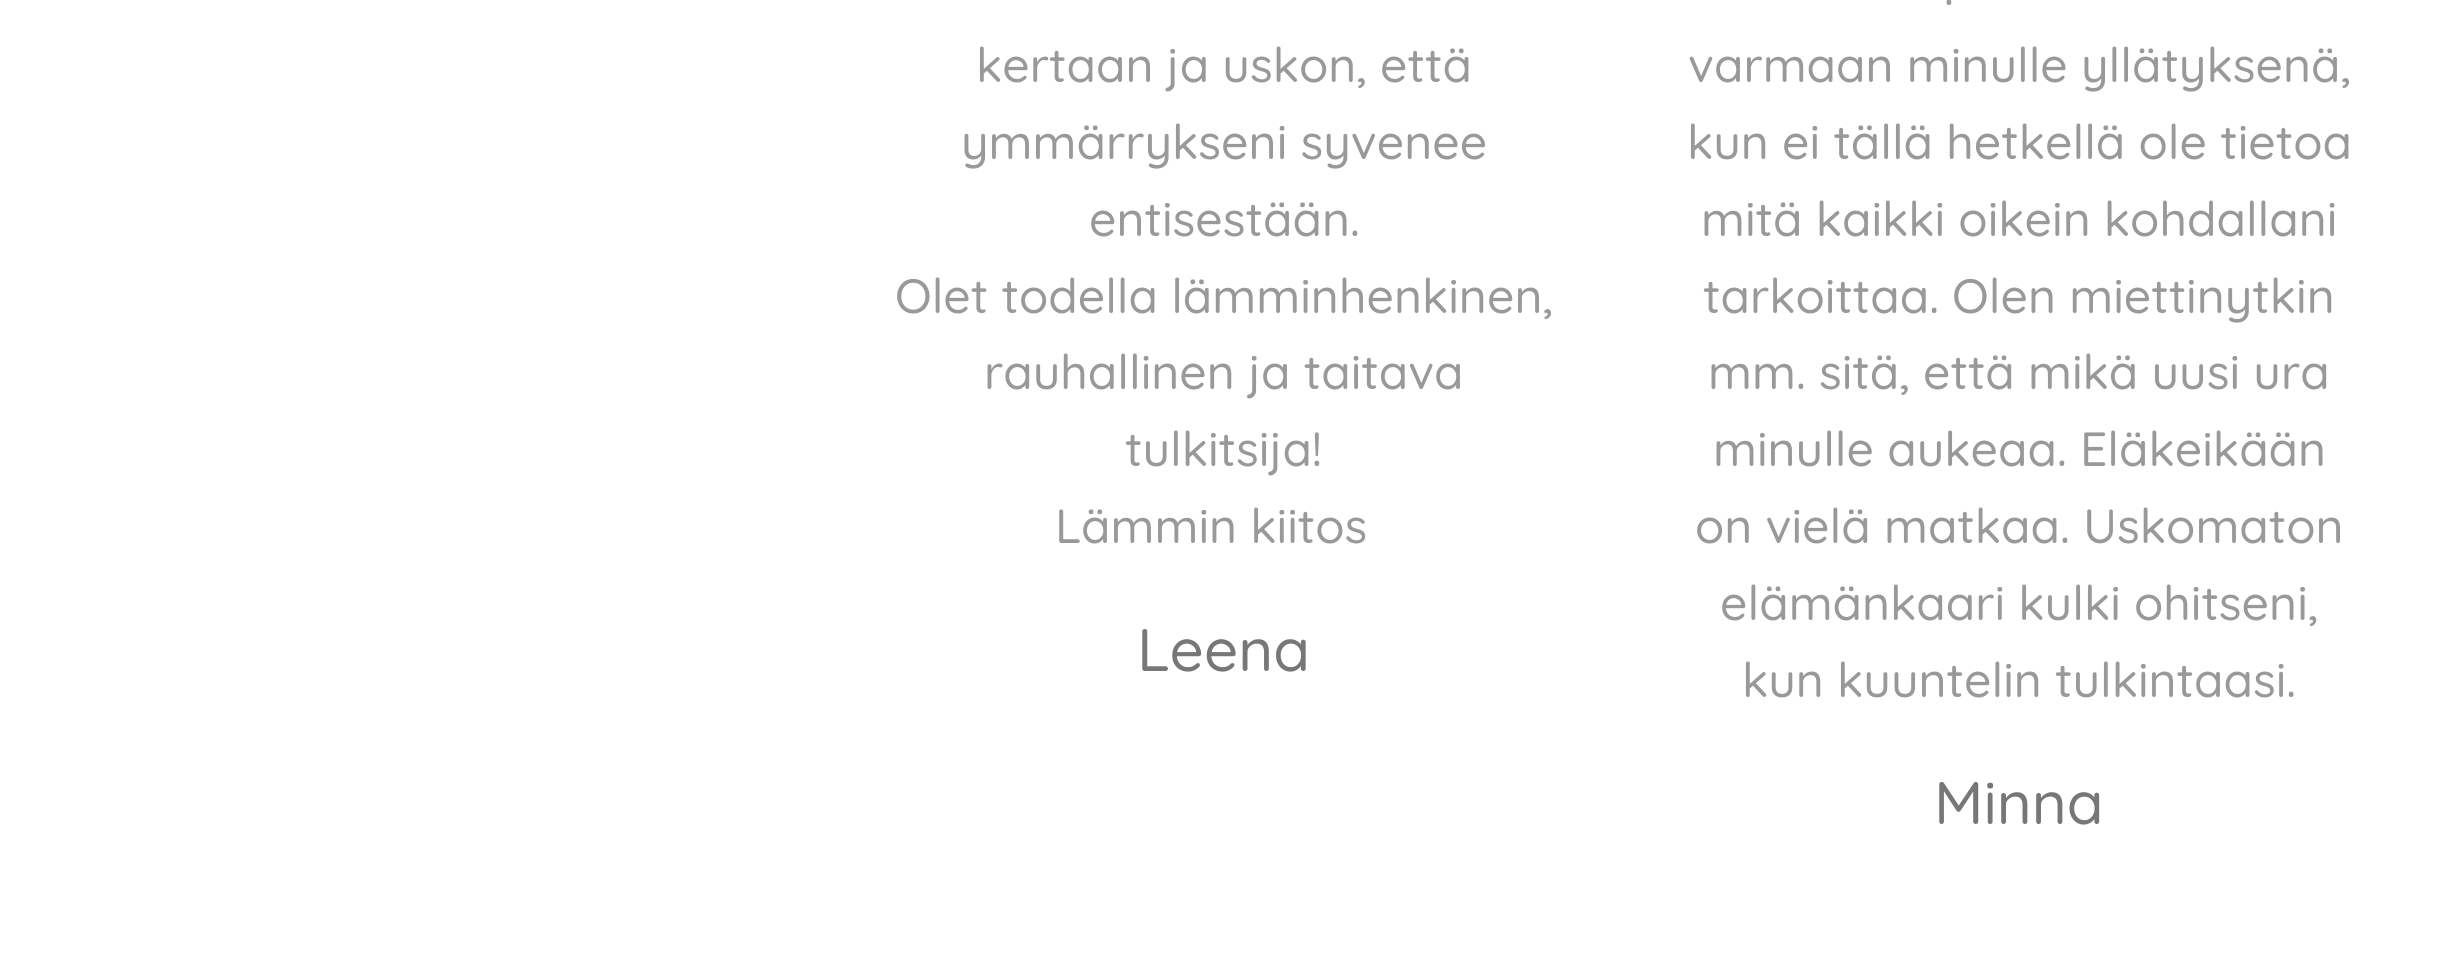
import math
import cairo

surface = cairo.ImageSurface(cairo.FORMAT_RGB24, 2446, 971)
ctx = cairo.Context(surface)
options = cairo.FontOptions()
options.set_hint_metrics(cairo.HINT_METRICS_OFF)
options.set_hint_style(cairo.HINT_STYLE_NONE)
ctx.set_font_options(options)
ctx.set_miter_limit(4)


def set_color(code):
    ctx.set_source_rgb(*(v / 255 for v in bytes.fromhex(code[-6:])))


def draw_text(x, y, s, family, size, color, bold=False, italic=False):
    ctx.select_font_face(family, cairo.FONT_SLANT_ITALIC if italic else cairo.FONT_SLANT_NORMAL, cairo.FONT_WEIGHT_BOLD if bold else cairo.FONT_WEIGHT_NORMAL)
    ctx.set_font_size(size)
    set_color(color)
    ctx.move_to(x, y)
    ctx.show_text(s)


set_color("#ffffff")
ctx.paint()
draw_text(976, 82, "kertaan ja uskon, että", "Quicksand Medium", 48, "#999999")
draw_text(961, 159, "ymmärrykseni syvenee", "Quicksand Medium", 48, "#999999")
draw_text(1089, 236, "entisestään.", "Quicksand Medium", 48, "#999999")
draw_text(895, 313, "Olet todella lämminhenkinen,", "Quicksand Medium", 48, "#999999")
draw_text(984, 389, "rauhallinen ja taitava", "Quicksand Medium", 48, "#999999")
draw_text(1125, 466, "tulkitsija!", "Quicksand Medium", 48, "#999999")
draw_text(1055, 543, "Lämmin kiitos", "Quicksand Medium", 48, "#999999")
draw_text(1137, 671, "Leena", "Quicksand Medium", 60, "#777777")
draw_text(1944, 5, ".", "Quicksand Medium", 48, "#999999")
draw_text(1688, 82, "varmaan minulle yllätyksenä,", "Quicksand Medium", 48, "#999999")
draw_text(1687, 159, "kun ei tällä hetkellä ole tietoa", "Quicksand Medium", 48, "#999999")
draw_text(1701, 236, "mitä kaikki oikein kohdallani", "Quicksand Medium", 48, "#999999")
draw_text(1703, 313, "tarkoittaa. Olen miettinytkin", "Quicksand Medium", 48, "#999999")
draw_text(1708, 389, "mm. sitä, että mikä uusi ura", "Quicksand Medium", 48, "#999999")
draw_text(1713, 466, "minulle aukeaa. Eläkeikään", "Quicksand Medium", 48, "#999999")
draw_text(1695, 543, "on vielä matkaa. Uskomaton", "Quicksand Medium", 48, "#999999")
draw_text(1720, 620, "elämänkaari kulki ohitseni,", "Quicksand Medium", 48, "#999999")
draw_text(1742, 697, "kun kuuntelin tulkintaasi.", "Quicksand Medium", 48, "#999999")
draw_text(1934, 824, "Minna", "Quicksand Medium", 60, "#777777")
surface.write_to_png("output.png")
